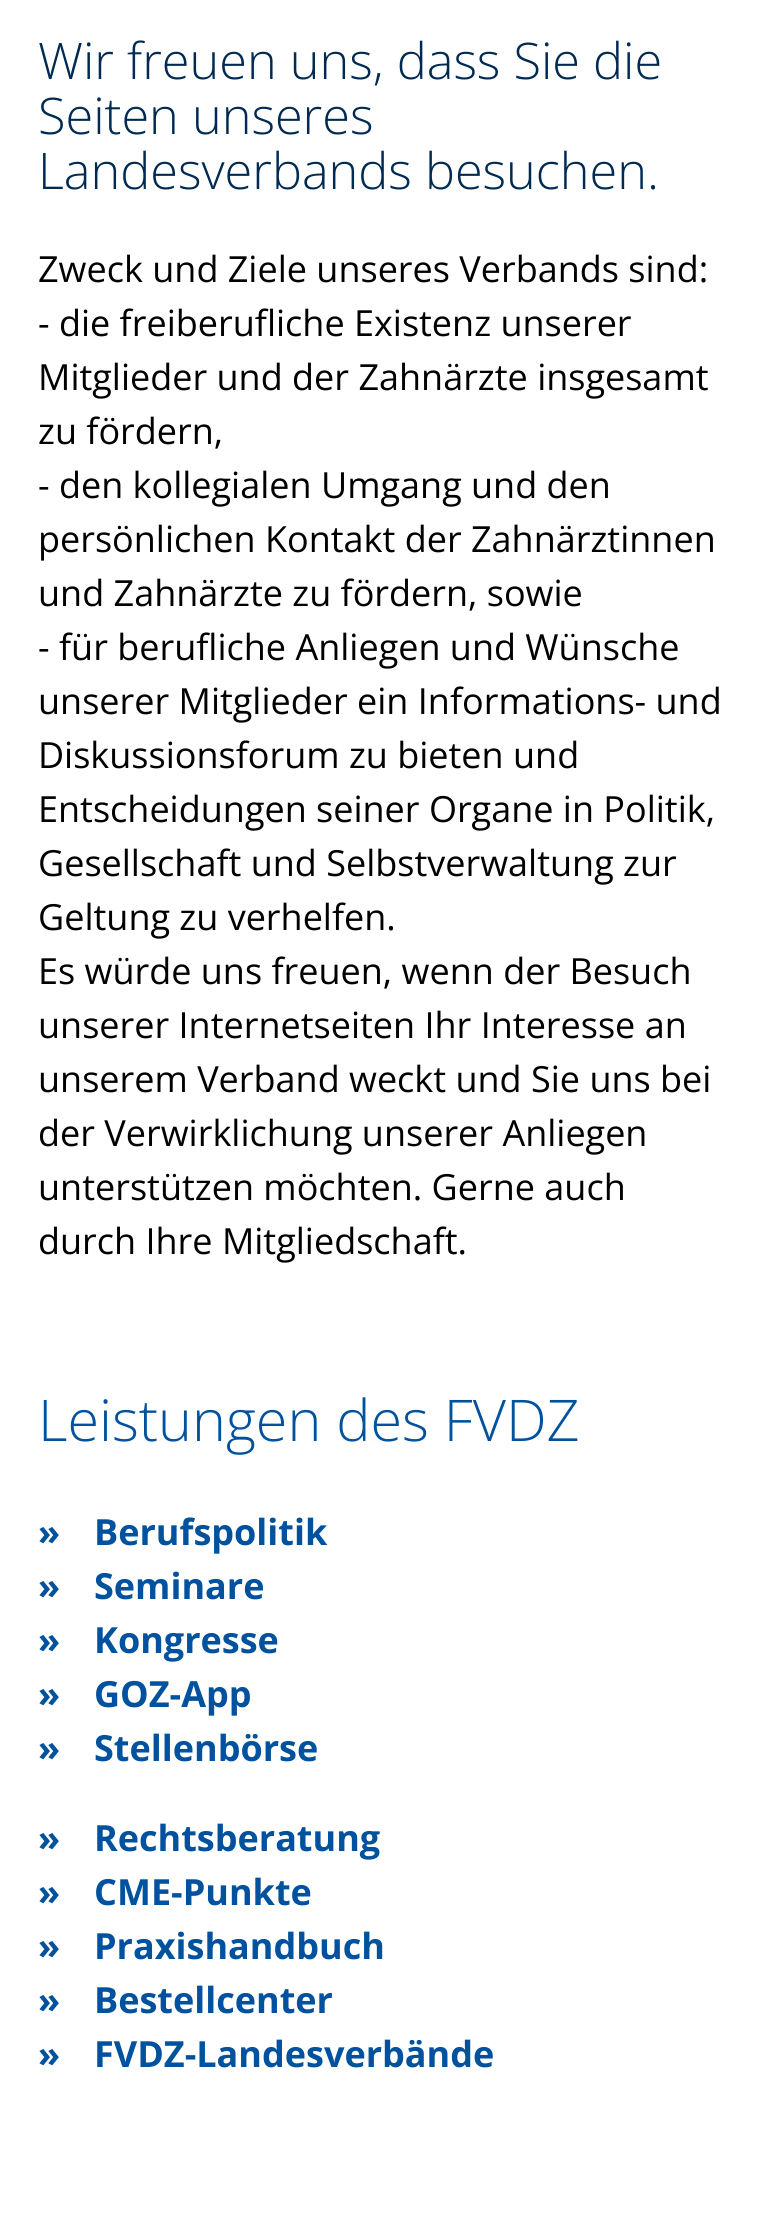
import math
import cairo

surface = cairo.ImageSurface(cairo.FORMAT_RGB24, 762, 2217)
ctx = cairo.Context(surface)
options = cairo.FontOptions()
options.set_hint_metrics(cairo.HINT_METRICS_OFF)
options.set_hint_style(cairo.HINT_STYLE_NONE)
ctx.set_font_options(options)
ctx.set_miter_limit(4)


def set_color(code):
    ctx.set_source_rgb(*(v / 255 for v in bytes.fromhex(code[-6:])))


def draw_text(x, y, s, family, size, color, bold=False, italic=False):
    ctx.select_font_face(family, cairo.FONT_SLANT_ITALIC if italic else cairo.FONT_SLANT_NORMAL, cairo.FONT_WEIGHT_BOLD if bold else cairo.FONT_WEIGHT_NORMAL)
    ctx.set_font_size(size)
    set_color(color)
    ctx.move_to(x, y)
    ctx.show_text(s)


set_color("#ffffff")
ctx.paint()
draw_text(38, 79, "Wir freuen uns, dass Sie die", "Open Sans Light", 50.4, "#002a52")
draw_text(38, 134, "Seiten unseres", "Open Sans Light", 50.4, "#002a52")
draw_text(38, 189, "Landesverbands besuchen.", "Open Sans Light", 50.4, "#002a52")
draw_text(38, 282, "Zweck und Ziele unseres Verbands sind:", "Open Sans", 36, "#000000")
draw_text(38, 336, "- die freiberufliche Existenz unserer", "Open Sans", 36, "#000000")
draw_text(38, 390, "Mitglieder und der Zahnärzte insgesamt", "Open Sans", 36, "#000000")
draw_text(38, 444, "zu fördern,", "Open Sans", 36, "#000000")
draw_text(38, 498, "- den kollegialen Umgang und den", "Open Sans", 36, "#000000")
draw_text(38, 552, "persönlichen Kontakt der Zahnärztinnen", "Open Sans", 36, "#000000")
draw_text(38, 606, "und Zahnärzte zu fördern, sowie", "Open Sans", 36, "#000000")
draw_text(38, 660, "- für berufliche Anliegen und Wünsche", "Open Sans", 36, "#000000")
draw_text(38, 714, "unserer Mitglieder ein Informations- und", "Open Sans", 36, "#000000")
draw_text(38, 768, "Diskussionsforum zu bieten und", "Open Sans", 36, "#000000")
draw_text(38, 822, "Entscheidungen seiner Organe in Politik,", "Open Sans", 36, "#000000")
draw_text(38, 876, "Gesellschaft und Selbstverwaltung zur", "Open Sans", 36, "#000000")
draw_text(38, 930, "Geltung zu verhelfen.", "Open Sans", 36, "#000000")
draw_text(38, 984, "Es würde uns freuen, wenn der Besuch", "Open Sans", 36, "#000000")
draw_text(38, 1038, "unserer Internetseiten Ihr Interesse an", "Open Sans", 36, "#000000")
draw_text(38, 1092, "unserem Verband weckt und Sie uns bei", "Open Sans", 36, "#000000")
draw_text(38, 1146, "der Verwirklichung unserer Anliegen", "Open Sans", 36, "#000000")
draw_text(38, 1200, "unterstützen möchten. Gerne auch", "Open Sans", 36, "#000000")
draw_text(38, 1254, "durch Ihre Mitgliedschaft.", "Open Sans", 36, "#000000")
draw_text(38, 1441, "Leistungen des FVDZ", "Open Sans Light", 57.5, "#00519e")
draw_text(38, 1545, "»", "Open Sans", 36, "#00519e", bold=True)
draw_text(94, 1545, "Berufspolitik", "Open Sans", 36, "#00519e", bold=True)
draw_text(38, 1599, "»", "Open Sans", 36, "#00519e", bold=True)
draw_text(94, 1599, "Seminare", "Open Sans", 36, "#00519e", bold=True)
draw_text(38, 1653, "»", "Open Sans", 36, "#00519e", bold=True)
draw_text(94, 1653, "Kongresse", "Open Sans", 36, "#00519e", bold=True)
draw_text(38, 1707, "»", "Open Sans", 36, "#00519e", bold=True)
draw_text(94, 1707, "GOZ-App", "Open Sans", 36, "#00519e", bold=True)
draw_text(38, 1761, "»", "Open Sans", 36, "#00519e", bold=True)
draw_text(94, 1761, "Stellenbörse", "Open Sans", 36, "#00519e", bold=True)
draw_text(38, 1851, "»", "Open Sans", 36, "#00519e", bold=True)
draw_text(94, 1851, "Rechtsberatung", "Open Sans", 36, "#00519e", bold=True)
draw_text(38, 1905, "»", "Open Sans", 36, "#00519e", bold=True)
draw_text(94, 1905, "CME-Punkte", "Open Sans", 36, "#00519e", bold=True)
draw_text(38, 1959, "»", "Open Sans", 36, "#00519e", bold=True)
draw_text(94, 1959, "Praxishandbuch", "Open Sans", 36, "#00519e", bold=True)
draw_text(38, 2013, "»", "Open Sans", 36, "#00519e", bold=True)
draw_text(94, 2013, "Bestellcenter", "Open Sans", 36, "#00519e", bold=True)
draw_text(38, 2067, "»", "Open Sans", 36, "#00519e", bold=True)
draw_text(94, 2067, "FVDZ-Landesverbände", "Open Sans", 36, "#00519e", bold=True)
surface.write_to_png("output.png")
